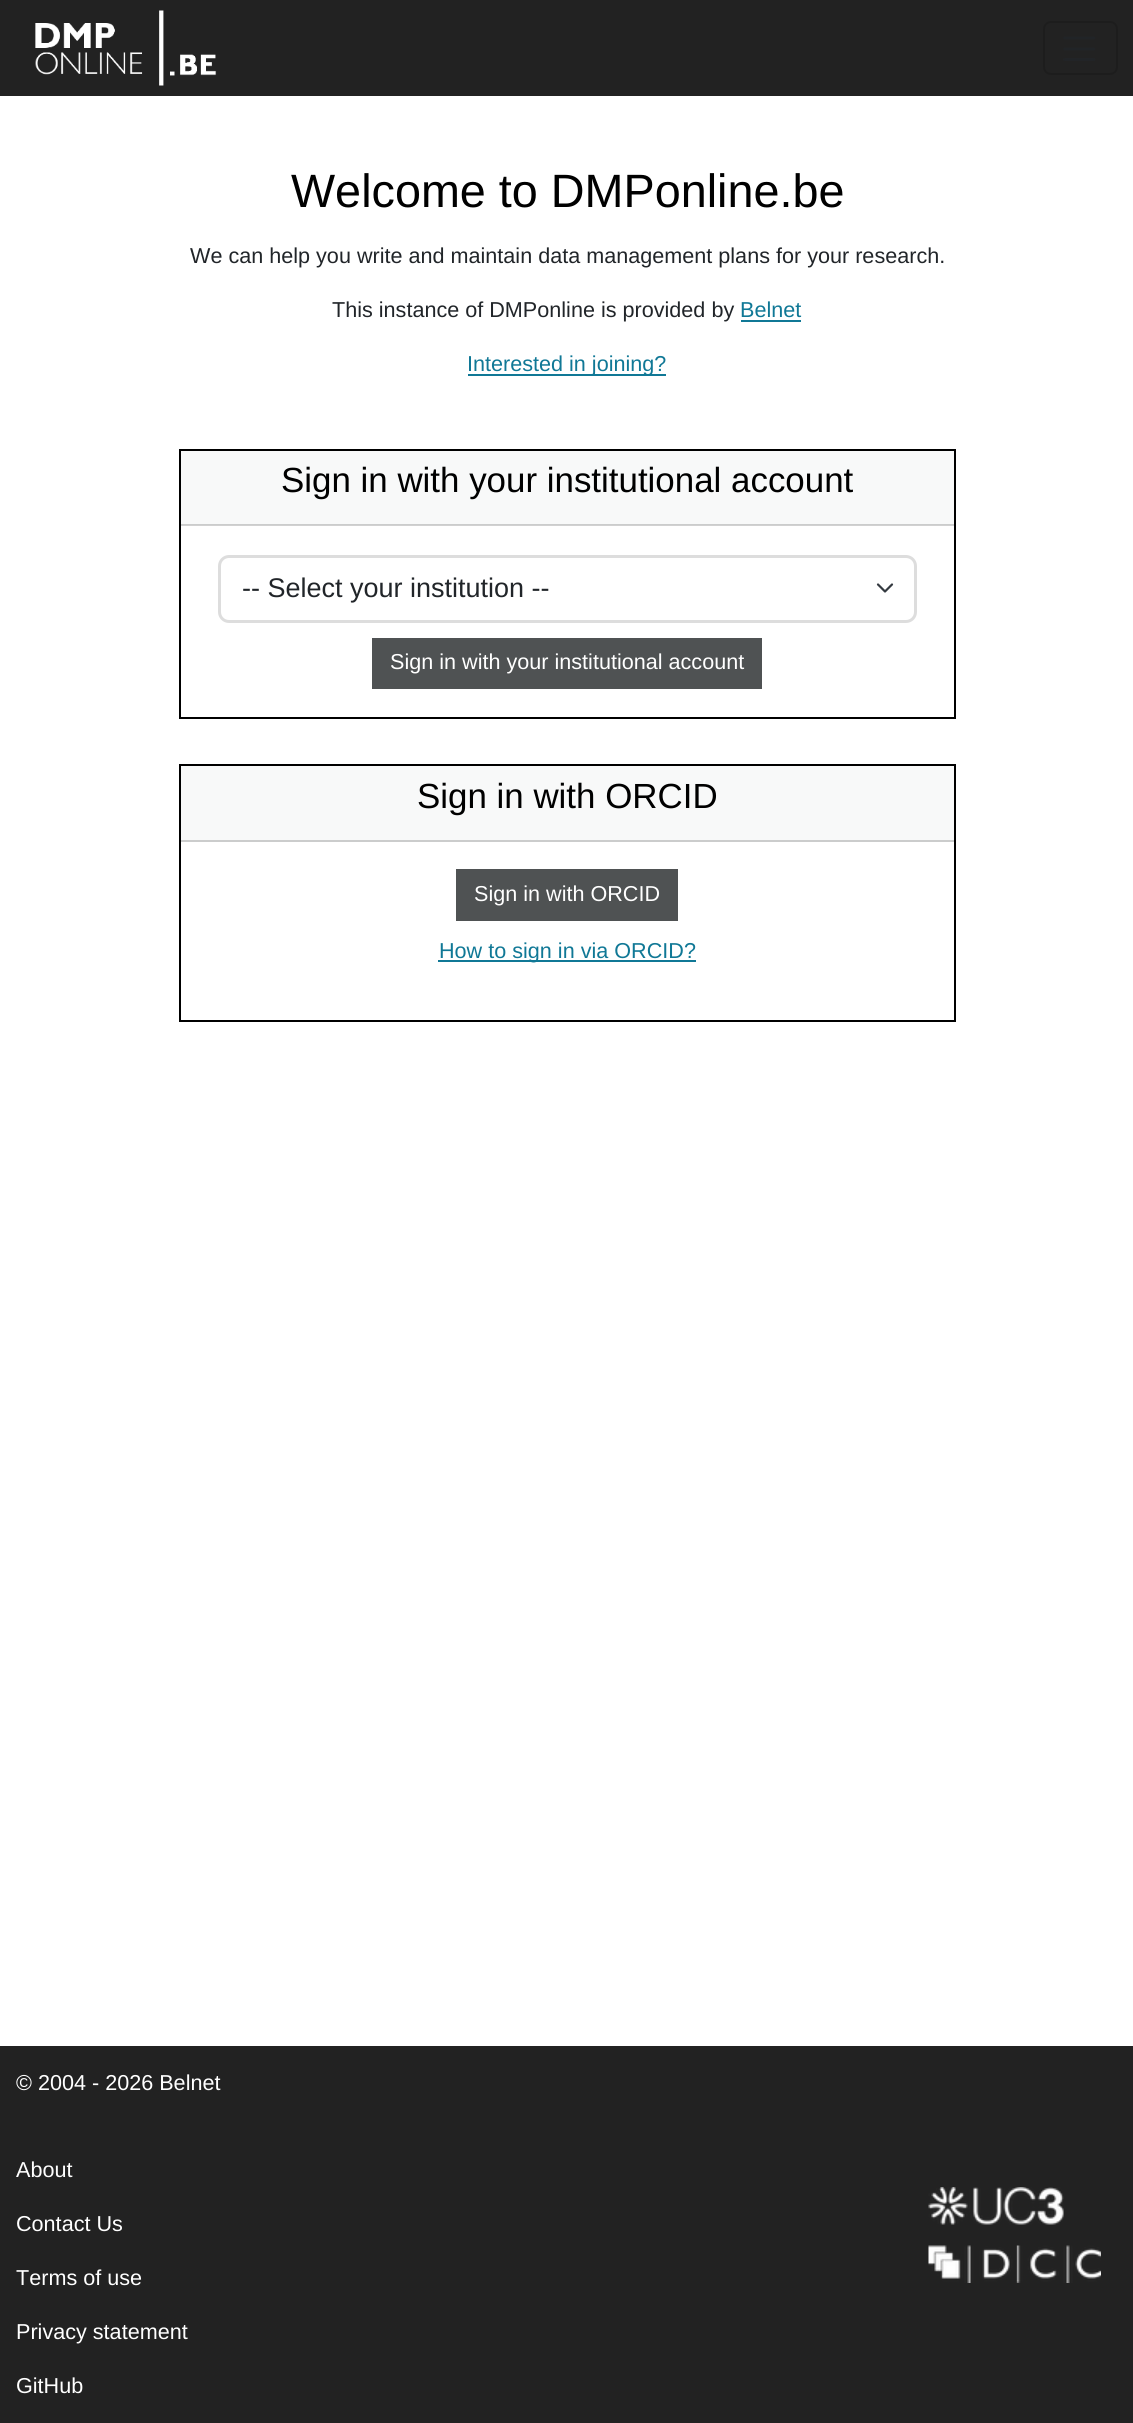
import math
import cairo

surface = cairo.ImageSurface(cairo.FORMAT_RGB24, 1133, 2423)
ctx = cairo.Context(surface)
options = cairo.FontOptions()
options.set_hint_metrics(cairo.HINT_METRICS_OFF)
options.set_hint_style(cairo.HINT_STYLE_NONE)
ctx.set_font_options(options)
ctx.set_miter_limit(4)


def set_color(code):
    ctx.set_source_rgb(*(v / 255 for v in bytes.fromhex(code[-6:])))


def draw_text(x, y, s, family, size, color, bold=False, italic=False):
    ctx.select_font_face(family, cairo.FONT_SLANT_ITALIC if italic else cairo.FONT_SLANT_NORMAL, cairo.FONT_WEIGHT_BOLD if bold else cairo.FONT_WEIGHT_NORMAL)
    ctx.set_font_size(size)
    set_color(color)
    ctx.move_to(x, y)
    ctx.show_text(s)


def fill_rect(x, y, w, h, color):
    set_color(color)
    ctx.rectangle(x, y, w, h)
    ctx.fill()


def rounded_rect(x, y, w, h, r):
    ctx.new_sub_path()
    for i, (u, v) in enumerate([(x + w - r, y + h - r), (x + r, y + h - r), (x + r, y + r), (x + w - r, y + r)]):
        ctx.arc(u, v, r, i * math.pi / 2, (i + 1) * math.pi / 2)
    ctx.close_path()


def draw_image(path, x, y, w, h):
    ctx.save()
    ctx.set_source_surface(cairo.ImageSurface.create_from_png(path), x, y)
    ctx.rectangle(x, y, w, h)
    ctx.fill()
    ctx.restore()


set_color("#ffffff")
ctx.paint()
fill_rect(0, 0, 1133, 96, "#222222")
draw_image("assets/img1.png", 35, 10, 182, 76)
rounded_rect(1044, 22, 73, 52, 7)
set_color("#1d1d1d")
ctx.stroke()
ctx.new_path()
ctx.move_to(1064.5, 38)
ctx.line_to(1094, 38)
ctx.move_to(1064.5, 49)
ctx.line_to(1094, 49)
ctx.move_to(1064.5, 59.5)
ctx.line_to(1094, 59.5)
set_color("#212427")
ctx.set_line_width(2.7)
ctx.set_line_cap(cairo.LINE_CAP_ROUND)
ctx.stroke()
draw_text(291, 207, "Welcome to DMPonline.be", "Liberation Sans", 46.75, "#000000")
draw_text(190, 263, "We can help you write and maintain data management plans for your research.", "Liberation Sans", 21.6, "#212529")
draw_text(332, 317, "This instance of DMPonline is provided by", "Liberation Sans", 21.6, "#212529")
draw_text(740, 317, "Belnet", "Liberation Sans", 21.6, "#107896")
fill_rect(741, 320, 60, 2, "#107896")
fill_rect(468, 374, 198, 2, "#107896")
draw_text(467, 371, "Interested in joining?", "Liberation Sans", 21.6, "#107896")
ctx.rectangle(180, 450, 775, 268)
set_color("#000000")
ctx.set_line_width(2)
ctx.set_line_cap(cairo.LINE_CAP_BUTT)
ctx.stroke()
ctx.set_source_rgba(0.129, 0.145, 0.161, 0.03)
ctx.rectangle(181, 451, 773, 74)
ctx.fill()
ctx.set_source_rgba(0, 0, 0, 0.18)
ctx.rectangle(180, 524, 774, 2)
ctx.fill()
draw_text(281, 492, "Sign in with your institutional account", "Liberation Sans", 34.9, "#000000")
ctx.new_path()
ctx.move_to(878, 584.5)
ctx.line_to(885, 591.5)
ctx.line_to(892, 584.5)
set_color("#343a40")
ctx.set_line_width(2.2)
ctx.set_line_cap(cairo.LINE_CAP_ROUND)
ctx.set_line_join(cairo.LINE_JOIN_ROUND)
ctx.stroke()
rounded_rect(219.5, 556.5, 696, 65, 9.5)
set_color("#dddddd")
ctx.set_line_width(3)
ctx.set_line_cap(cairo.LINE_CAP_BUTT)
ctx.set_line_join(cairo.LINE_JOIN_MITER)
ctx.stroke()
draw_text(242, 597, "-- Select your institution --", "Liberation Sans", 27, "#212529")
fill_rect(372, 638, 390, 51, "#4f5253")
draw_text(390, 669, "Sign in with your institutional account", "Liberation Sans", 21.6, "#ffffff")
ctx.rectangle(180, 765, 775, 256)
set_color("#000000")
ctx.set_line_width(2)
ctx.stroke()
ctx.set_source_rgba(0.129, 0.145, 0.161, 0.03)
ctx.rectangle(181, 766, 773, 76)
ctx.fill()
ctx.set_source_rgba(0, 0, 0, 0.18)
ctx.rectangle(180, 840, 774, 2)
ctx.fill()
draw_text(417, 808, "Sign in with ORCID", "Liberation Sans", 34.9, "#000000")
fill_rect(456, 869, 222, 52, "#4f5253")
draw_text(474, 901, "Sign in with ORCID", "Liberation Sans", 21.6, "#ffffff")
fill_rect(438, 960, 258, 2, "#107896")
draw_text(439, 958, "How to sign in via ORCID?", "Liberation Sans", 21.6, "#107896")
fill_rect(0, 2046, 1133, 377, "#222222")
draw_text(16, 2090, "© 2004 - 2026 Belnet", "Liberation Sans", 21.6, "#ffffff")
draw_text(16, 2177, "About", "Liberation Sans", 21.6, "#ffffff")
draw_text(16, 2231, "Contact Us", "Liberation Sans", 21.6, "#ffffff")
draw_text(16, 2285, "Terms of use", "Liberation Sans", 21.6, "#ffffff")
draw_text(16, 2339, "Privacy statement", "Liberation Sans", 21.6, "#ffffff")
draw_text(16, 2393, "GitHub", "Liberation Sans", 21.6, "#ffffff")
draw_image("assets/img2.png", 928, 2187, 136, 38)
draw_image("assets/img3.png", 928, 2245, 173, 38)
surface.write_to_png("output.png")
